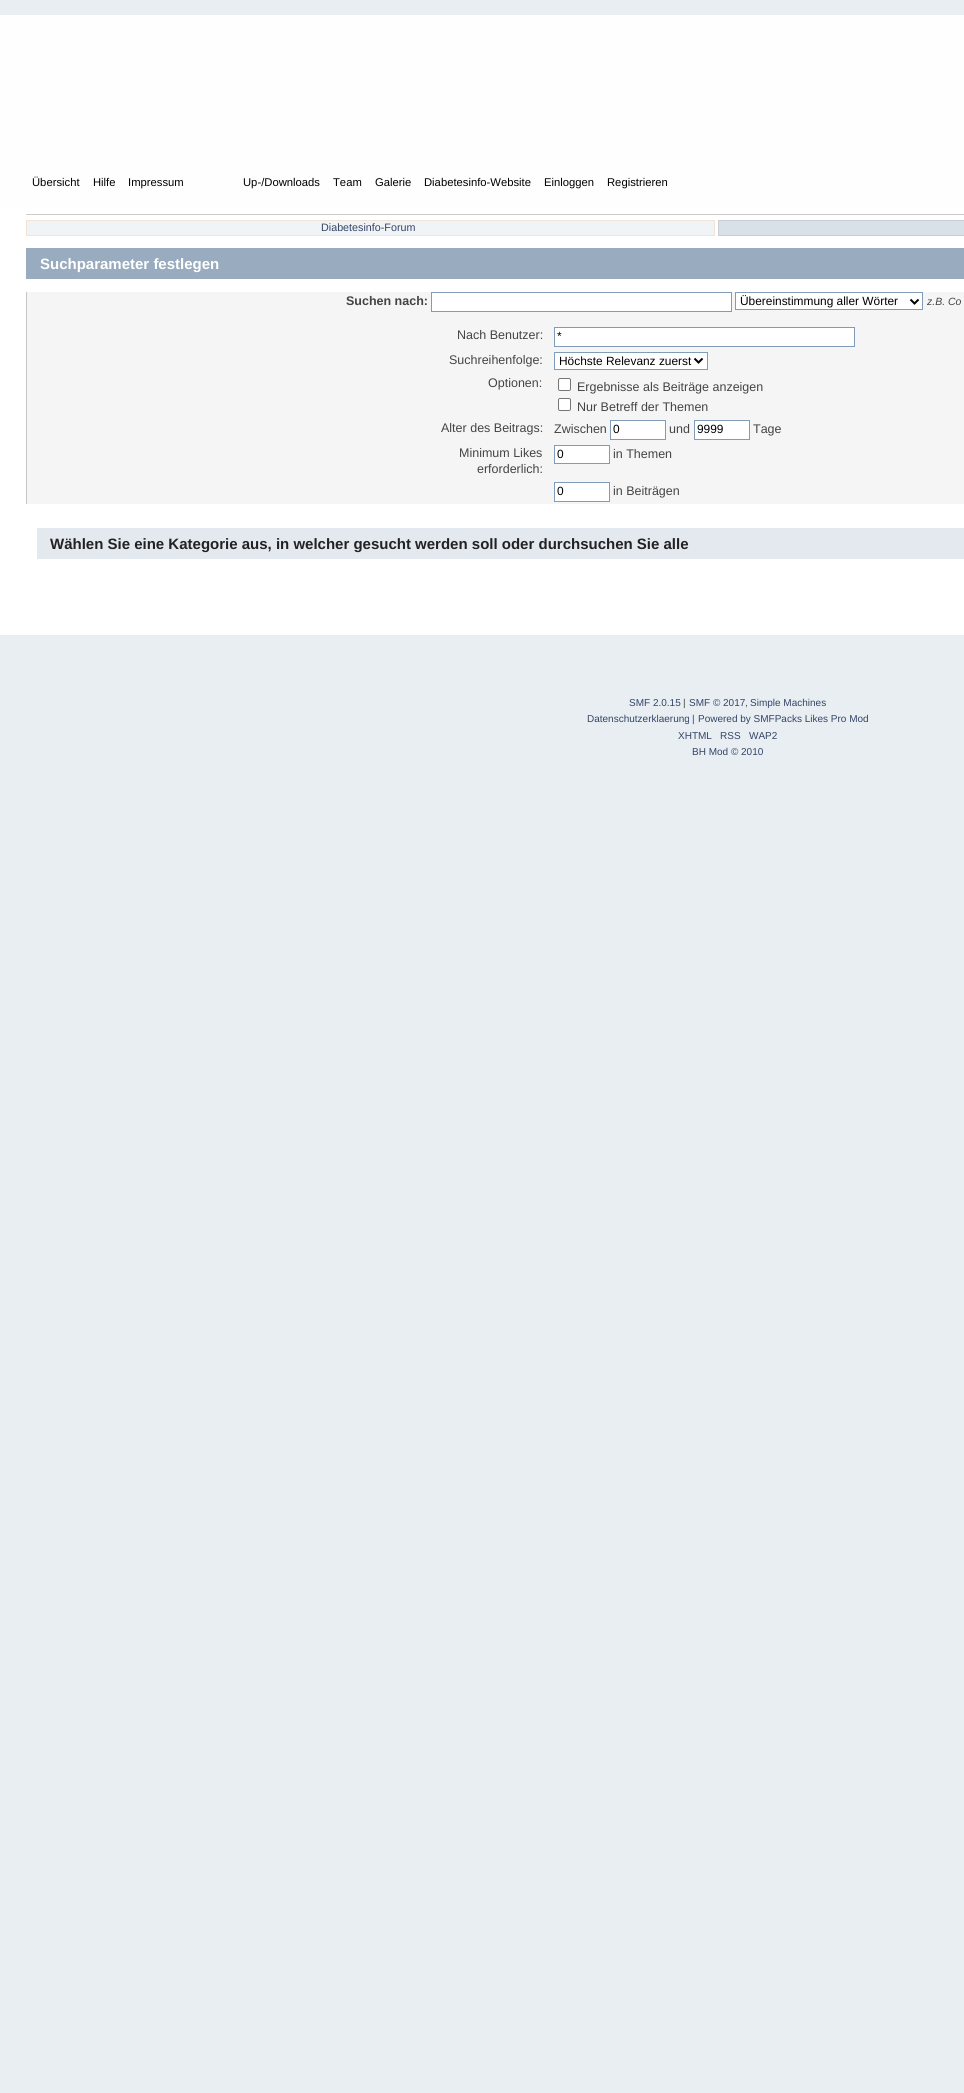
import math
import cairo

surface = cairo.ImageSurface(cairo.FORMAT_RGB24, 964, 2093)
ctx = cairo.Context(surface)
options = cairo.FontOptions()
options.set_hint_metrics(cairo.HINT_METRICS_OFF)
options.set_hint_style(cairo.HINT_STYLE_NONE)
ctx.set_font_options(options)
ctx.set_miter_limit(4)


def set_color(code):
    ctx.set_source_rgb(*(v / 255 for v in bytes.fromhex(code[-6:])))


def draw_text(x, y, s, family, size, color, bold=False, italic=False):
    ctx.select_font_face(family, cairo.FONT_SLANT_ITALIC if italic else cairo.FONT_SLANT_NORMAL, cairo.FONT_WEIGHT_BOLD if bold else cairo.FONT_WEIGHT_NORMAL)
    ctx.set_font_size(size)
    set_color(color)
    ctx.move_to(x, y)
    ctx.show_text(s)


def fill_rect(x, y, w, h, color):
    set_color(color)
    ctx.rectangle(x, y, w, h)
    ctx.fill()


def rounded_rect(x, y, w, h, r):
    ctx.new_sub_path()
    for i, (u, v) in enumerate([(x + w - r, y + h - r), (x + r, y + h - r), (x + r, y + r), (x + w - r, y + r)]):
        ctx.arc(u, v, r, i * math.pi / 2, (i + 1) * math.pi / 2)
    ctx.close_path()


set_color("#e9eef2")
ctx.paint()
fill_rect(0, 15, 964, 192, "#fefefe")
draw_text(32, 186, "Übersicht", "Liberation Sans", 11.25, "#000000")
draw_text(93, 186, "Hilfe", "Liberation Sans", 11.25, "#000000")
draw_text(128, 186, "Impressum", "Liberation Sans", 11.25, "#000000")
draw_text(243, 186, "Up-/Downloads", "Liberation Sans", 11.25, "#000000")
draw_text(333, 186, "Team", "Liberation Sans", 11.25, "#000000")
draw_text(375, 186, "Galerie", "Liberation Sans", 11.25, "#000000")
draw_text(424, 186, "Diabetesinfo-Website", "Liberation Sans", 11.25, "#000000")
draw_text(544, 186, "Einloggen", "Liberation Sans", 11.25, "#000000")
draw_text(607, 186, "Registrieren", "Liberation Sans", 11.25, "#000000")
fill_rect(0, 207, 964, 428, "#ffffff")
fill_rect(26, 214, 938, 1, "#cccccc")
set_color("#f0f4f7")
ctx.rectangle(26.5, 220.5, 688, 15)
ctx.fill_preserve()
set_color("#f2e3d9")
ctx.set_line_width(1)
ctx.stroke()
draw_text(321, 231, "Diabetesinfo-Forum", "Liberation Sans", 10.75, "#334466")
set_color("#d8e1e7")
ctx.rectangle(718.5, 220.5, 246, 15)
ctx.fill_preserve()
set_color("#cacdd3")
ctx.stroke()
fill_rect(26, 248, 938, 31, "#99abbf")
draw_text(40, 269, "Suchparameter festlegen", "Liberation Sans", 15, "#ffffff", bold=True)
fill_rect(27, 292, 937, 212, "#f5f5f5")
fill_rect(26, 292, 1, 212, "#c5c5c5")
draw_text(346, 305, "Suchen nach:", "Liberation Sans", 12.5, "#444444", bold=True)
set_color("#ffffff")
ctx.rectangle(431.5, 292.5, 300, 19)
ctx.fill_preserve()
set_color("#7f9db9")
ctx.stroke()
set_color("#ffffff")
ctx.rectangle(735.5, 292.5, 187, 17)
ctx.fill_preserve()
set_color("#7f9db9")
ctx.stroke()
ctx.new_path()
ctx.move_to(910.5, 299.5)
ctx.line_to(914.5, 303.5)
ctx.line_to(918.5, 299.5)
set_color("#000000")
ctx.set_line_width(2)
ctx.stroke()
draw_text(740, 305, "Übereinstimmung aller Wörter", "Liberation Sans", 11.9, "#000000")
draw_text(927, 305, "z.B. Co", "Liberation Sans", 10.5, "#444444", italic=True)
draw_text(457, 339, "Nach Benutzer:", "Liberation Sans", 12.5, "#444444")
set_color("#ffffff")
ctx.rectangle(554.5, 327.5, 300, 19)
ctx.fill_preserve()
set_color("#7f9db9")
ctx.set_line_width(1)
ctx.stroke()
draw_text(557, 340, "*", "Liberation Sans", 11.9, "#000000")
draw_text(449, 364, "Suchreihenfolge:", "Liberation Sans", 12.5, "#444444")
set_color("#ffffff")
ctx.rectangle(554.5, 352.5, 153, 17)
ctx.fill_preserve()
set_color("#7f9db9")
ctx.stroke()
ctx.new_path()
ctx.move_to(694.5, 358.5)
ctx.line_to(698.5, 362.5)
ctx.line_to(702.5, 358.5)
set_color("#000000")
ctx.set_line_width(2)
ctx.stroke()
draw_text(559, 365, "Höchste Relevanz zuerst", "Liberation Sans", 11.9, "#000000")
draw_text(488, 387, "Optionen:", "Liberation Sans", 12.5, "#444444")
set_color("#ffffff")
rounded_rect(558.5, 378.5, 12, 12, 1.5)
ctx.fill_preserve()
set_color("#767676")
ctx.set_line_width(1)
ctx.stroke()
draw_text(577, 391, "Ergebnisse als Beiträge anzeigen", "Liberation Sans", 12.5, "#444444")
set_color("#ffffff")
rounded_rect(558.5, 398.5, 12, 12, 1.5)
ctx.fill_preserve()
set_color("#767676")
ctx.stroke()
draw_text(577, 411, "Nur Betreff der Themen", "Liberation Sans", 12.5, "#444444")
draw_text(441, 432, "Alter des Beitrags:", "Liberation Sans", 12.5, "#444444")
draw_text(554, 433, "Zwischen", "Liberation Sans", 12.5, "#444444")
set_color("#ffffff")
ctx.rectangle(610.5, 420.5, 55, 19)
ctx.fill_preserve()
set_color("#7f9db9")
ctx.stroke()
draw_text(613, 433, "0", "Liberation Sans", 11.9, "#000000")
draw_text(669, 433, "und", "Liberation Sans", 12.5, "#444444")
set_color("#ffffff")
ctx.rectangle(694.5, 420.5, 55, 19)
ctx.fill_preserve()
set_color("#7f9db9")
ctx.stroke()
draw_text(697, 433, "9999", "Liberation Sans", 11.9, "#000000")
draw_text(753, 433, "Tage", "Liberation Sans", 12.5, "#444444")
draw_text(459, 457, "Minimum Likes", "Liberation Sans", 12.5, "#444444")
draw_text(477, 473, "erforderlich:", "Liberation Sans", 12.5, "#444444")
set_color("#ffffff")
ctx.rectangle(554.5, 445.5, 55, 18)
ctx.fill_preserve()
set_color("#7f9db9")
ctx.stroke()
draw_text(557, 458, "0", "Liberation Sans", 11.9, "#000000")
draw_text(613, 458, "in Themen", "Liberation Sans", 12.5, "#444444")
set_color("#ffffff")
ctx.rectangle(554.5, 482.5, 55, 19)
ctx.fill_preserve()
set_color("#7f9db9")
ctx.stroke()
draw_text(557, 495, "0", "Liberation Sans", 11.9, "#000000")
draw_text(613, 495, "in Beiträgen", "Liberation Sans", 12.5, "#444444")
fill_rect(37, 528, 927, 31, "#e3e9ef")
draw_text(50, 549, "Wählen Sie eine Kategorie aus, in welcher gesucht werden soll oder durchsuchen Sie alle", "Liberation Sans", 15, "#222222", bold=True)
draw_text(629, 706, "SMF 2.0.15", "Liberation Sans", 10, "#334466")
draw_text(683, 706, "|", "Liberation Sans", 10, "#444444")
draw_text(689, 706, "SMF © 2017", "Liberation Sans", 10, "#334466")
draw_text(745, 706, ",", "Liberation Sans", 10, "#444444")
draw_text(750, 706, "Simple Machines", "Liberation Sans", 10, "#334466")
draw_text(587, 722, "Datenschutzerklaerung", "Liberation Sans", 10, "#334466")
draw_text(692, 722, "|", "Liberation Sans", 10, "#444444")
draw_text(698, 722, "Powered by SMFPacks Likes Pro Mod", "Liberation Sans", 10, "#334466")
draw_text(678, 739, "XHTML", "Liberation Sans", 10, "#334466")
draw_text(720, 739, "RSS", "Liberation Sans", 10, "#334466")
draw_text(749, 739, "WAP2", "Liberation Sans", 10, "#334466")
draw_text(692, 755, "BH Mod © 2010", "Liberation Sans", 10, "#334466")
surface.write_to_png("output.png")
